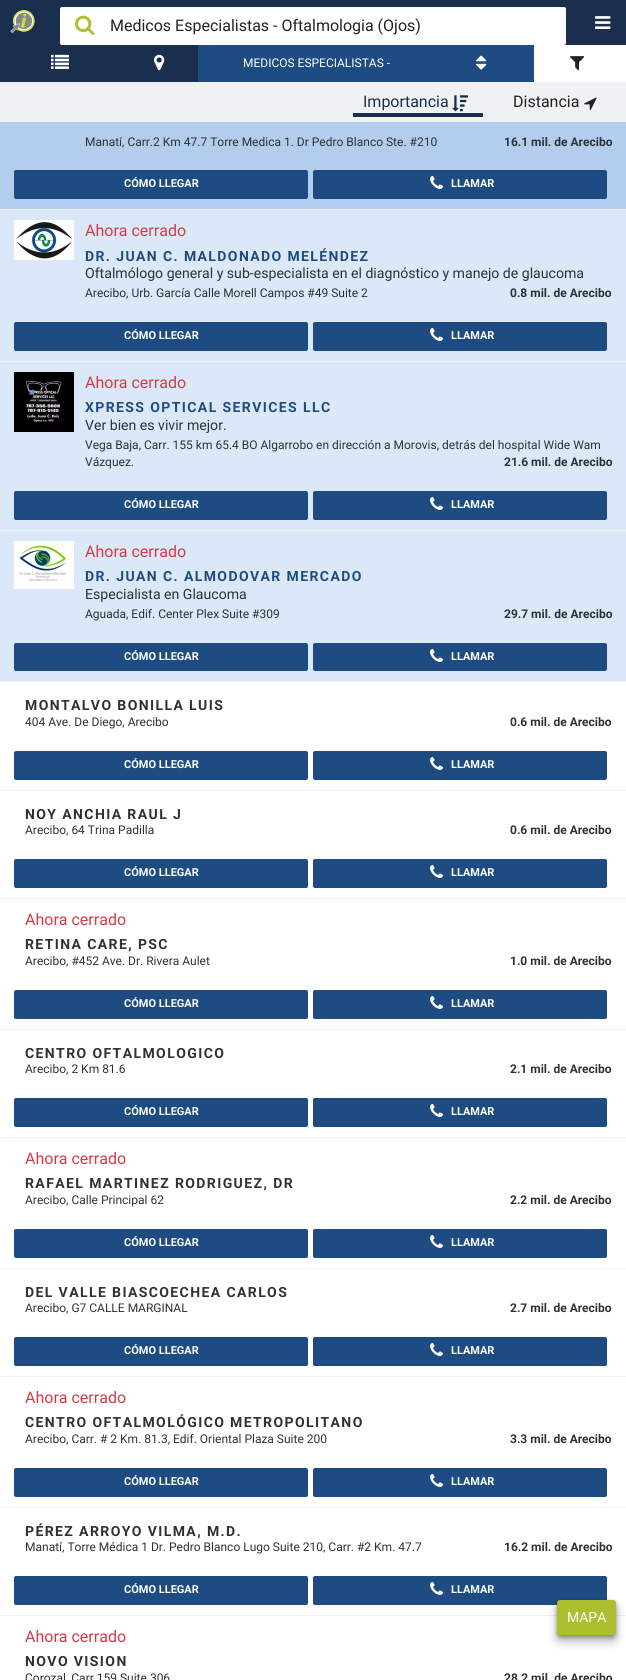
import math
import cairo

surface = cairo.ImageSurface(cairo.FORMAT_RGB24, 626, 1680)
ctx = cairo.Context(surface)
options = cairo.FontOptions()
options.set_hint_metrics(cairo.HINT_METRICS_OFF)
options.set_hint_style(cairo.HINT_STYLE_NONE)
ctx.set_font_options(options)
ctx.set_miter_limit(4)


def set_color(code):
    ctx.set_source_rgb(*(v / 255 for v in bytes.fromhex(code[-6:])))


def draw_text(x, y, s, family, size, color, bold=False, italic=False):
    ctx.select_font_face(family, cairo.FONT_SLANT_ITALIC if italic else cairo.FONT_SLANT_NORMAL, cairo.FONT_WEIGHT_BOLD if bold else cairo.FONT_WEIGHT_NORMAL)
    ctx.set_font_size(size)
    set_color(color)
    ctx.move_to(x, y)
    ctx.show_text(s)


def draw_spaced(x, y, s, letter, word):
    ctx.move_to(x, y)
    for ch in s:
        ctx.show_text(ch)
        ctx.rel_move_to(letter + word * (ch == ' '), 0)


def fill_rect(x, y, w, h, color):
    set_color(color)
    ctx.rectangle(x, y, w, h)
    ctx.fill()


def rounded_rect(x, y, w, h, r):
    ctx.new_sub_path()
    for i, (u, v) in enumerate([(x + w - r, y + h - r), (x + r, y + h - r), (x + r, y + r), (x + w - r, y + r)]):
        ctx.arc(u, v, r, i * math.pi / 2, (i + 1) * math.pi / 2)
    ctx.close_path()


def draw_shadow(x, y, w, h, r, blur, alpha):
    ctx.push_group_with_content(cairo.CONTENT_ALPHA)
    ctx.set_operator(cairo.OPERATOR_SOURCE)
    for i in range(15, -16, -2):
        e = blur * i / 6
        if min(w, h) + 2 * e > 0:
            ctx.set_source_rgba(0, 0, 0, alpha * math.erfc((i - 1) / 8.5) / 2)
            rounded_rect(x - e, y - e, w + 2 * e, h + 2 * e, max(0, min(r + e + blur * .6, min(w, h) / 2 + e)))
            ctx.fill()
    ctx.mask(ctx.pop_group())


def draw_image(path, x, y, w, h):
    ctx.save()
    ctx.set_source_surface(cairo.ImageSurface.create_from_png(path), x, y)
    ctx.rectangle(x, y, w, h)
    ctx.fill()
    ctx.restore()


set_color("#ffffff")
ctx.paint()
fill_rect(0, 0, 626, 45, "#192f4d")
draw_image("assets/img1.png", 10, 10, 25, 23)
set_color("#ffffff")
rounded_rect(60, 7, 506, 38, 2)
ctx.fill()
draw_image("assets/img2.png", 75, 15, 20, 20)
draw_text(110, 31, "Medicos Especialistas - Oftalmologia (Ojos)", "Roboto", 16, "#222222")
draw_image("assets/img3.png", 595, 16, 16, 13)
fill_rect(0, 45, 198, 37, "#192f4d")
draw_image("assets/img4.png", 51, 54, 18, 15)
draw_image("assets/img5.png", 154, 54, 11, 17)
fill_rect(198, 45, 336, 37, "#1e4b82")
draw_text(243, 67, "MEDICOS ESPECIALISTAS -", "Roboto", 12, "#ffffff")
draw_image("assets/img6.png", 476, 55, 11, 15)
draw_image("assets/img7.png", 570, 56, 15, 15)
fill_rect(0, 82, 626, 40, "#f0f1f3")
draw_text(363, 107, "Importancia", "Roboto", 16, "#192f4d")
draw_image("assets/img8.png", 452, 95, 16, 17)
fill_rect(353, 113, 130, 4, "#192f4d")
draw_text(513, 107, "Distancia", "Roboto", 16, "#222222")
draw_image("assets/img9.png", 584, 97, 13, 14)
fill_rect(0, 122, 626, 87, "#b2cded")
fill_rect(0, 209, 626, 1, "#f0f1f3")
draw_text(85, 146, "Manatí, Carr.2 Km 47.7 Torre Medica 1. Dr Pedro Blanco Ste. #210", "Roboto", 12, "#2d3237")
draw_text(504, 146, "16.1 mil. de Arecibo", "Roboto", 12, "#2d3237", bold=True)
set_color("#1e4b82")
rounded_rect(14, 170, 294, 29, 2)
ctx.fill()
draw_text(124, 187, "CÓMO LLEGAR", "Roboto", 11, "#ffffff", bold=True)
set_color("#1e4b82")
rounded_rect(313, 170, 294, 29, 2)
ctx.fill()
draw_image("assets/img10.png", 430, 176, 13, 13)
draw_text(451, 187, "LLAMAR", "Roboto", 11, "#ffffff", bold=True)
fill_rect(0, 210, 626, 151, "#dbe8f7")
fill_rect(0, 361, 626, 1, "#f0f1f3")
draw_image("assets/img11.png", 14, 220, 60, 40)
draw_text(85, 236, "Ahora cerrado", "Roboto", 16, "#d63a46")
ctx.select_font_face("Roboto", cairo.FONT_SLANT_NORMAL, cairo.FONT_WEIGHT_BOLD)
ctx.set_font_size(14)
set_color("#1e4b82")
draw_spaced(85, 261, "DR. JUAN C. MALDONADO MELÉNDEZ", 1.4, 0)
draw_text(85, 278, "Oftalmólogo general y sub-especialista en el diagnóstico y manejo de glaucoma", "Roboto", 14.1, "#2d3237")
draw_text(85, 297, "Arecibo, Urb. García Calle Morell Campos #49 Suite 2", "Roboto", 12, "#2d3237")
draw_text(510, 297, "0.8 mil. de Arecibo", "Roboto", 12, "#2d3237", bold=True)
set_color("#1e4b82")
rounded_rect(14, 322, 294, 29, 2)
ctx.fill()
draw_text(124, 339, "CÓMO LLEGAR", "Roboto", 11, "#ffffff", bold=True)
set_color("#1e4b82")
rounded_rect(313, 322, 294, 29, 2)
ctx.fill()
draw_image("assets/img10.png", 430, 328, 13, 13)
draw_text(451, 339, "LLAMAR", "Roboto", 11, "#ffffff", bold=True)
fill_rect(0, 362, 626, 168, "#dbe8f7")
fill_rect(0, 530, 626, 1, "#f0f1f3")
draw_image("assets/img12.png", 14, 372, 60, 60)
draw_text(85, 388, "Ahora cerrado", "Roboto", 16, "#d63a46")
ctx.select_font_face("Roboto", cairo.FONT_SLANT_NORMAL, cairo.FONT_WEIGHT_BOLD)
ctx.set_font_size(14)
set_color("#1e4b82")
draw_spaced(85, 412, "XPRESS OPTICAL SERVICES LLC", 1.4, 0)
draw_text(85, 430, "Ver bien es vivir mejor.", "Roboto", 14.1, "#2d3237")
draw_text(85, 449, "Vega Baja, Carr. 155 km 65.4 BO Algarrobo en dirección a Morovis, detrás del hospital Wide Wam", "Roboto", 12, "#2d3237")
draw_text(85, 466, "Vázquez.", "Roboto", 12, "#2d3237")
draw_text(504, 466, "21.6 mil. de Arecibo", "Roboto", 12, "#2d3237", bold=True)
set_color("#1e4b82")
rounded_rect(14, 491, 294, 29, 2)
ctx.fill()
draw_text(124, 508, "CÓMO LLEGAR", "Roboto", 11, "#ffffff", bold=True)
set_color("#1e4b82")
rounded_rect(313, 491, 294, 29, 2)
ctx.fill()
draw_image("assets/img10.png", 430, 497, 13, 13)
draw_text(451, 508, "LLAMAR", "Roboto", 11, "#ffffff", bold=True)
fill_rect(0, 531, 626, 150, "#dbe8f7")
fill_rect(0, 681, 626, 1, "#f0f1f3")
draw_image("assets/img13.png", 14, 541, 60, 48)
draw_text(85, 557, "Ahora cerrado", "Roboto", 16, "#d63a46")
ctx.select_font_face("Roboto", cairo.FONT_SLANT_NORMAL, cairo.FONT_WEIGHT_BOLD)
ctx.set_font_size(14)
set_color("#1e4b82")
draw_spaced(85, 581, "DR. JUAN C. ALMODOVAR MERCADO", 1.4, 0)
draw_text(85, 599, "Especialista en Glaucoma", "Roboto", 14.1, "#2d3237")
draw_text(85, 618, "Aguada, Edif. Center Plex Suite #309", "Roboto", 12, "#2d3237")
draw_text(504, 618, "29.7 mil. de Arecibo", "Roboto", 12, "#2d3237", bold=True)
set_color("#1e4b82")
rounded_rect(14, 643, 294, 28, 2)
ctx.fill()
draw_text(124, 660, "CÓMO LLEGAR", "Roboto", 11, "#ffffff", bold=True)
set_color("#1e4b82")
rounded_rect(313, 643, 294, 28, 2)
ctx.fill()
draw_image("assets/img10.png", 430, 649, 13, 13)
draw_text(451, 660, "LLAMAR", "Roboto", 11, "#ffffff", bold=True)
fill_rect(0, 790, 626, 1, "#f0f1f3")
ctx.set_font_size(14)
set_color("#2d3237")
draw_spaced(25, 710, "MONTALVO BONILLA LUIS", 1.4, 0)
draw_text(25, 726, "404 Ave. De Diego, Arecibo", "Roboto", 12, "#2d3237")
draw_text(510, 726, "0.6 mil. de Arecibo", "Roboto", 12, "#2d3237", bold=True)
set_color("#1e4b82")
rounded_rect(14, 751, 294, 29, 2)
ctx.fill()
draw_text(124, 768, "CÓMO LLEGAR", "Roboto", 11, "#ffffff", bold=True)
set_color("#1e4b82")
rounded_rect(313, 751, 294, 29, 2)
ctx.fill()
draw_image("assets/img10.png", 430, 757, 13, 13)
draw_text(451, 768, "LLAMAR", "Roboto", 11, "#ffffff", bold=True)
fill_rect(0, 898, 626, 1, "#f0f1f3")
ctx.set_font_size(14)
set_color("#2d3237")
draw_spaced(25, 819, "NOY ANCHIA RAUL J", 1.4, 0)
draw_text(25, 834, "Arecibo, 64 Trina Padilla", "Roboto", 12, "#2d3237")
draw_text(510, 834, "0.6 mil. de Arecibo", "Roboto", 12, "#2d3237", bold=True)
set_color("#1e4b82")
rounded_rect(14, 859, 294, 29, 2)
ctx.fill()
draw_text(124, 876, "CÓMO LLEGAR", "Roboto", 11, "#ffffff", bold=True)
set_color("#1e4b82")
rounded_rect(313, 859, 294, 29, 2)
ctx.fill()
draw_image("assets/img10.png", 430, 865, 13, 13)
draw_text(451, 876, "LLAMAR", "Roboto", 11, "#ffffff", bold=True)
fill_rect(0, 1029, 626, 1, "#f0f1f3")
draw_text(25, 925, "Ahora cerrado", "Roboto", 16, "#d63a46")
ctx.select_font_face("Roboto", cairo.FONT_SLANT_NORMAL, cairo.FONT_WEIGHT_BOLD)
ctx.set_font_size(14)
set_color("#2d3237")
draw_spaced(25, 949, "RETINA CARE, PSC", 1.4, 0)
draw_text(25, 965, "Arecibo, #452 Ave. Dr. Rivera Aulet", "Roboto", 12, "#2d3237")
draw_text(510, 965, "1.0 mil. de Arecibo", "Roboto", 12, "#2d3237", bold=True)
set_color("#1e4b82")
rounded_rect(14, 990, 294, 29, 2)
ctx.fill()
draw_text(124, 1007, "CÓMO LLEGAR", "Roboto", 11, "#ffffff", bold=True)
set_color("#1e4b82")
rounded_rect(313, 990, 294, 29, 2)
ctx.fill()
draw_image("assets/img10.png", 430, 996, 13, 13)
draw_text(451, 1007, "LLAMAR", "Roboto", 11, "#ffffff", bold=True)
fill_rect(0, 1137, 626, 1, "#f0f1f3")
ctx.set_font_size(14)
set_color("#2d3237")
draw_spaced(25, 1058, "CENTRO OFTALMOLOGICO", 1.4, 0)
draw_text(25, 1073, "Arecibo, 2 Km 81.6", "Roboto", 12, "#2d3237")
draw_text(510, 1073, "2.1 mil. de Arecibo", "Roboto", 12, "#2d3237", bold=True)
set_color("#1e4b82")
rounded_rect(14, 1098, 294, 29, 2)
ctx.fill()
draw_text(124, 1115, "CÓMO LLEGAR", "Roboto", 11, "#ffffff", bold=True)
set_color("#1e4b82")
rounded_rect(313, 1098, 294, 29, 2)
ctx.fill()
draw_image("assets/img10.png", 430, 1104, 13, 13)
draw_text(451, 1115, "LLAMAR", "Roboto", 11, "#ffffff", bold=True)
fill_rect(0, 1268, 626, 1, "#f0f1f3")
draw_text(25, 1164, "Ahora cerrado", "Roboto", 16, "#d63a46")
ctx.select_font_face("Roboto", cairo.FONT_SLANT_NORMAL, cairo.FONT_WEIGHT_BOLD)
ctx.set_font_size(14)
set_color("#2d3237")
draw_spaced(25, 1188, "RAFAEL MARTINEZ RODRIGUEZ, DR", 1.4, 0)
draw_text(25, 1204, "Arecibo, Calle Principal 62", "Roboto", 12, "#2d3237")
draw_text(510, 1204, "2.2 mil. de Arecibo", "Roboto", 12, "#2d3237", bold=True)
set_color("#1e4b82")
rounded_rect(14, 1229, 294, 29, 2)
ctx.fill()
draw_text(124, 1246, "CÓMO LLEGAR", "Roboto", 11, "#ffffff", bold=True)
set_color("#1e4b82")
rounded_rect(313, 1229, 294, 29, 2)
ctx.fill()
draw_image("assets/img10.png", 430, 1235, 13, 13)
draw_text(451, 1246, "LLAMAR", "Roboto", 11, "#ffffff", bold=True)
fill_rect(0, 1376, 626, 1, "#f0f1f3")
ctx.set_font_size(14)
set_color("#2d3237")
draw_spaced(25, 1297, "DEL VALLE BIASCOECHEA CARLOS", 1.4, 0)
draw_text(25, 1312, "Arecibo, G7 CALLE MARGINAL", "Roboto", 12, "#2d3237")
draw_text(510, 1312, "2.7 mil. de Arecibo", "Roboto", 12, "#2d3237", bold=True)
set_color("#1e4b82")
rounded_rect(14, 1337, 294, 29, 2)
ctx.fill()
draw_text(124, 1354, "CÓMO LLEGAR", "Roboto", 11, "#ffffff", bold=True)
set_color("#1e4b82")
rounded_rect(313, 1337, 294, 29, 2)
ctx.fill()
draw_image("assets/img10.png", 430, 1343, 13, 13)
draw_text(451, 1354, "LLAMAR", "Roboto", 11, "#ffffff", bold=True)
fill_rect(0, 1507, 626, 1, "#f0f1f3")
draw_text(25, 1403, "Ahora cerrado", "Roboto", 16, "#d63a46")
ctx.select_font_face("Roboto", cairo.FONT_SLANT_NORMAL, cairo.FONT_WEIGHT_BOLD)
ctx.set_font_size(14)
set_color("#2d3237")
draw_spaced(25, 1427, "CENTRO OFTALMOLÓGICO METROPOLITANO", 1.4, 0)
draw_text(25, 1443, "Arecibo, Carr. # 2 Km. 81.3, Edif. Oriental Plaza Suite 200", "Roboto", 12, "#2d3237")
draw_text(510, 1443, "3.3 mil. de Arecibo", "Roboto", 12, "#2d3237", bold=True)
set_color("#1e4b82")
rounded_rect(14, 1468, 294, 29, 2)
ctx.fill()
draw_text(124, 1485, "CÓMO LLEGAR", "Roboto", 11, "#ffffff", bold=True)
set_color("#1e4b82")
rounded_rect(313, 1468, 294, 29, 2)
ctx.fill()
draw_image("assets/img10.png", 430, 1474, 13, 13)
draw_text(451, 1485, "LLAMAR", "Roboto", 11, "#ffffff", bold=True)
fill_rect(0, 1615, 626, 1, "#f0f1f3")
ctx.set_font_size(14)
set_color("#2d3237")
draw_spaced(25, 1536, "PÉREZ ARROYO VILMA, M.D.", 1.4, 0)
draw_text(25, 1551, "Manatí, Torre Médica 1 Dr. Pedro Blanco Lugo Suite 210, Carr. #2 Km. 47.7", "Roboto", 12, "#2d3237")
draw_text(504, 1551, "16.2 mil. de Arecibo", "Roboto", 12, "#2d3237", bold=True)
set_color("#1e4b82")
rounded_rect(14, 1576, 294, 29, 2)
ctx.fill()
draw_text(124, 1593, "CÓMO LLEGAR", "Roboto", 11, "#ffffff", bold=True)
set_color("#1e4b82")
rounded_rect(313, 1576, 294, 29, 2)
ctx.fill()
draw_image("assets/img10.png", 430, 1582, 13, 13)
draw_text(451, 1593, "LLAMAR", "Roboto", 11, "#ffffff", bold=True)
set_color("#000000")
draw_shadow(557, 1606, 59, 35, 3, 5, 0.3)
draw_shadow(557, 1602, 59, 35, 3, 2, 0.3)
set_color("#acc02f")
rounded_rect(557, 1600, 59, 35, 3)
ctx.fill()
draw_text(567, 1622, "MAPA", "Roboto", 14, "#ffffff")
draw_text(25, 1642, "Ahora cerrado", "Roboto", 16, "#d63a46")
ctx.select_font_face("Roboto", cairo.FONT_SLANT_NORMAL, cairo.FONT_WEIGHT_BOLD)
ctx.set_font_size(14)
set_color("#2d3237")
draw_spaced(25, 1666, "NOVO VISION", 1.4, 0)
draw_text(25, 1682, "Corozal, Carr 159 Suite 306", "Roboto", 12, "#2d3237")
draw_text(504, 1682, "28.2 mil. de Arecibo", "Roboto", 12, "#2d3237", bold=True)
surface.write_to_png("output.png")
